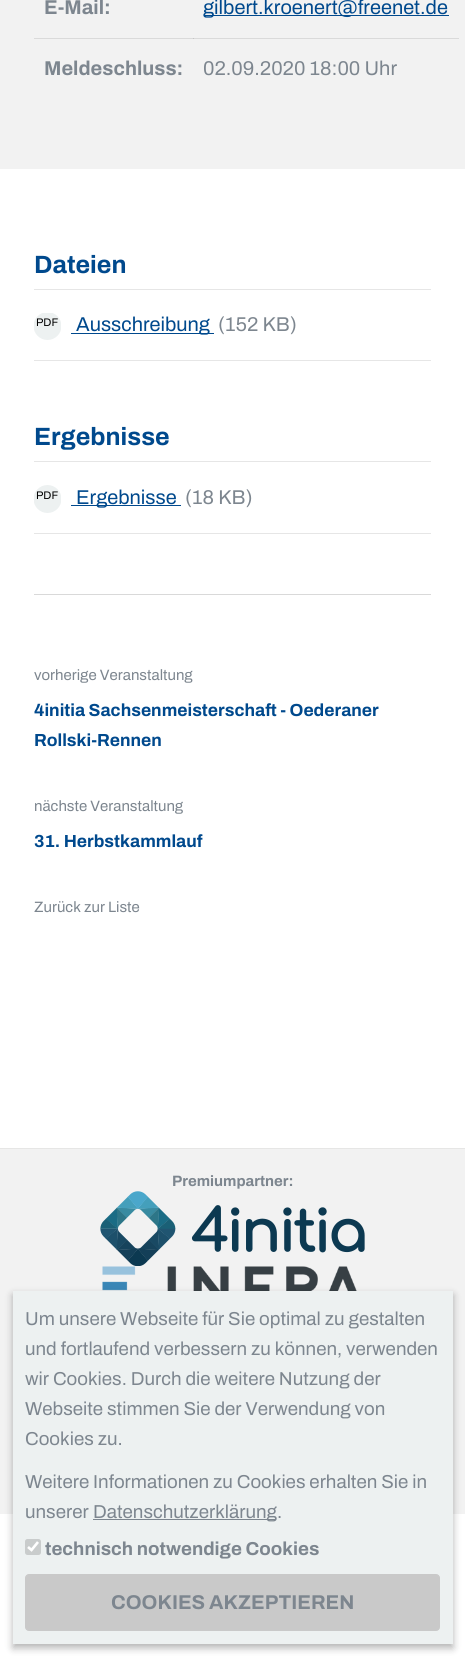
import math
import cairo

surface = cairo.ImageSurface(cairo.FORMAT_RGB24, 465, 1656)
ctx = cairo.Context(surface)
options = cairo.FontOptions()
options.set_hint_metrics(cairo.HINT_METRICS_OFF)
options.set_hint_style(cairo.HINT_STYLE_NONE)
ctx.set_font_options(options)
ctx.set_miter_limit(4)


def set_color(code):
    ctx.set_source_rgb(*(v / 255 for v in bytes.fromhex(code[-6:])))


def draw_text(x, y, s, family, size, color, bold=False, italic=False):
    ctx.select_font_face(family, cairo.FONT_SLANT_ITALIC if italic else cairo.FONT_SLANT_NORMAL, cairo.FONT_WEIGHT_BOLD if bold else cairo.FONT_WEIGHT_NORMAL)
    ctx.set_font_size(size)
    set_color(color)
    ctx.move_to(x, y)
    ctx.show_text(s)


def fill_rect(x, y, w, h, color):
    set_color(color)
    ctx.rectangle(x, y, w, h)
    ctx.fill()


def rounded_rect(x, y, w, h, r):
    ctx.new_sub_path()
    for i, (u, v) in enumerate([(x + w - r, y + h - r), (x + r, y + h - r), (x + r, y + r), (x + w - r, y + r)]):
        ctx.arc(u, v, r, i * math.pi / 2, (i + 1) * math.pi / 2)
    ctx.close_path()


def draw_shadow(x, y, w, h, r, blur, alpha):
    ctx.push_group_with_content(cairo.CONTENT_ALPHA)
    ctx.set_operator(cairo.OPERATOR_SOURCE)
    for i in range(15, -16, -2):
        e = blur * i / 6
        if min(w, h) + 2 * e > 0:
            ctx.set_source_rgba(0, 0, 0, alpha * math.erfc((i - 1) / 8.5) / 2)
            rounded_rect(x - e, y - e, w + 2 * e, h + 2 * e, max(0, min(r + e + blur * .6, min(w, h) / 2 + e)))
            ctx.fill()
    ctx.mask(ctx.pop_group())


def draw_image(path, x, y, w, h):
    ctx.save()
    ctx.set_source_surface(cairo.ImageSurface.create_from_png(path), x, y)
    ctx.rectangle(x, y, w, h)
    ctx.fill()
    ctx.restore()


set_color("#ffffff")
ctx.paint()
fill_rect(0, 0, 465, 169, "#f2f2f2")
fill_rect(34, 38, 425, 1, "#dadada")
draw_text(44, 14, "E-Mail:", "Archivo SemiBold", 20, "#7d868f")
fill_rect(193, 38, 1, 1, "#c4c4c4")
fill_rect(204, 15, 245, 1, "#00498d")
draw_text(203, 14, "gilbert.kroenert@freenet.de", "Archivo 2 SemiBold", 20, "#00498d")
draw_text(44, 75, "Meldeschluss:", "Archivo SemiBold", 20, "#7d868f")
draw_text(203, 75, "02.09.2020 18:00 Uhr", "Archivo 2 SemiBold", 20, "#7d868f")
draw_text(34, 273, "Dateien", "Archivo SemiBold", 25, "#00498d")
fill_rect(34, 289, 397, 1, "#e6e6e6")
fill_rect(34, 360, 397, 1, "#e6e6e6")
ctx.save()
ctx.rectangle(34, 313, 27, 27)
ctx.clip()
set_color("#edf1f1")
ctx.arc(47.5, 326, 14, 0, 2 * math.pi)
ctx.fill()
ctx.restore()
draw_text(36, 326, "PDF", "Archivo 2 SemiBold", 11, "#000000")
fill_rect(71, 333, 143, 1, "#00498d")
draw_text(76, 331, "Ausschreibung", "Archivo 2 SemiBold", 20, "#00498d")
draw_text(218, 331, "(152 KB)", "Archivo 2 SemiBold", 20, "#7d868f")
draw_text(34, 445, "Ergebnisse", "Archivo SemiBold", 25, "#00498d")
fill_rect(34, 461, 397, 1, "#e6e6e6")
fill_rect(34, 533, 397, 1, "#e6e6e6")
ctx.save()
ctx.rectangle(34, 485, 27, 28)
ctx.clip()
set_color("#edf1f1")
ctx.arc(47.5, 499, 14, 0, 2 * math.pi)
ctx.fill()
ctx.restore()
draw_text(36, 499, "PDF", "Archivo 2 SemiBold", 11, "#000000")
fill_rect(71, 505, 110, 1, "#00498d")
draw_text(76, 504, "Ergebnisse", "Archivo 2 SemiBold", 20, "#00498d")
draw_text(185, 504, "(18 KB)", "Archivo 2 SemiBold", 20, "#7d868f")
fill_rect(34, 594, 397, 1, "#d9d9d9")
draw_text(34, 680, "vorherige Veranstaltung", "Archivo 2 SemiBold", 15, "#7d868f")
draw_text(34, 716, "4initia Sachsenmeisterschaft - Oederaner", "Archivo SemiBold", 17.5, "#00498d")
draw_text(34, 746, "Rollski-Rennen", "Archivo SemiBold", 17.5, "#00498d")
draw_text(34, 811, "nächste Veranstaltung", "Archivo 2 SemiBold", 15, "#7d868f")
draw_text(34, 847, "31. Herbstkammlauf", "Archivo SemiBold", 17.5, "#00498d")
draw_text(34, 912, "Zurück zur Liste", "Archivo 2 SemiBold", 15, "#7d868f")
fill_rect(0, 1149, 465, 365, "#f2f2f2")
fill_rect(0, 1148, 465, 1, "#e6e6e5")
draw_text(172, 1186, "Premiumpartner:", "Archivo SemiBold", 15, "#7d868f")
draw_image("assets/img1.png", 100, 1191, 265, 75)
draw_image("assets/img2.png", 102, 1266, 255, 25)
set_color("#000000")
draw_shadow(13, 1295, 440, 353, 0, 4, 0.3)
fill_rect(13, 1291, 440, 353, "#edf1f1")
draw_text(25, 1325, "Um unsere Webseite für Sie optimal zu gestalten", "Archivo 2 SemiBold", 18.75, "#7d868f")
draw_text(25, 1355, "und fortlaufend verbessern zu können, verwenden", "Archivo 2 SemiBold", 18.75, "#7d868f")
draw_text(25, 1385, "wir Cookies. Durch die weitere Nutzung der", "Archivo 2 SemiBold", 18.75, "#7d868f")
draw_text(25, 1415, "Webseite stimmen Sie der Verwendung von", "Archivo 2 SemiBold", 18.75, "#7d868f")
draw_text(25, 1445, "Cookies zu.", "Archivo 2 SemiBold", 18.75, "#7d868f")
draw_text(25, 1488, "Weitere Informationen zu Cookies erhalten Sie in", "Archivo 2 SemiBold", 18.75, "#7d868f")
draw_text(25, 1518, "unserer", "Archivo 2 SemiBold", 18.75, "#7d868f")
fill_rect(93, 1519, 183, 1, "#7d868f")
draw_text(93, 1518, "Datenschutzerklärung.", "Archivo 2 SemiBold", 18.75, "#7d868f")
set_color("#c9cccc")
rounded_rect(25, 1539, 16, 16, 2.5)
ctx.fill()
ctx.new_path()
ctx.move_to(28, 1547)
ctx.line_to(31.5, 1550)
ctx.line_to(38, 1542)
set_color("#ffffff")
ctx.set_line_width(2.6)
ctx.stroke()
draw_text(45, 1555, "technisch notwendige Cookies", "Archivo SemiBold", 18.75, "#7d868f")
set_color("#c9c9c9")
rounded_rect(25.5, 1574.5, 414, 56, 3.5)
ctx.fill_preserve()
ctx.set_line_width(1)
ctx.stroke()
draw_text(111, 1609, "COOKIES AKZEPTIEREN", "Archivo SemiBold", 20, "#7d868f")
surface.write_to_png("output.png")
